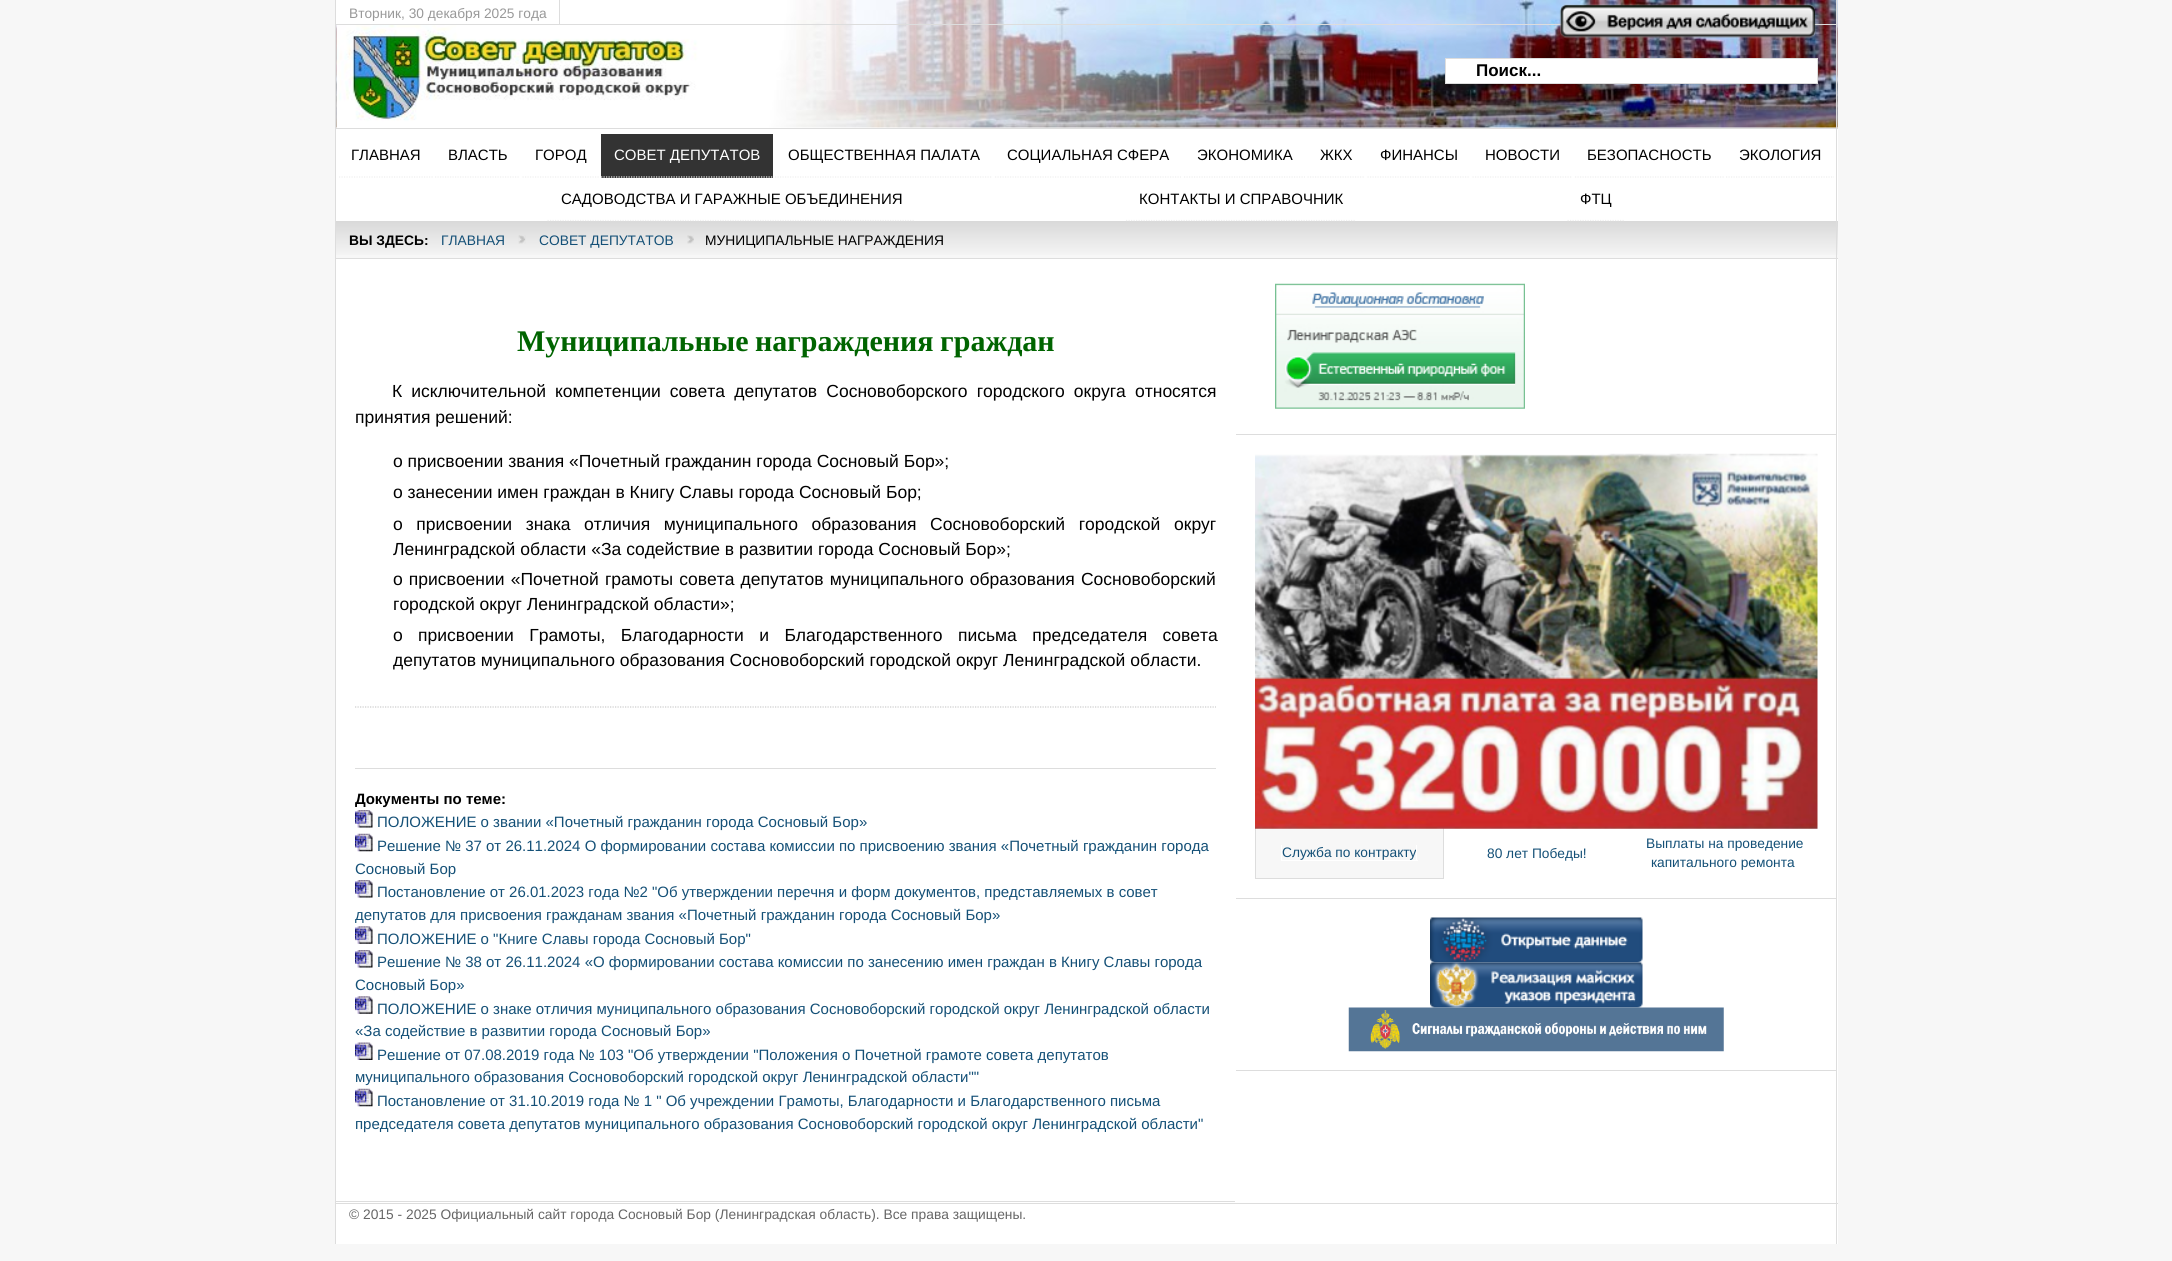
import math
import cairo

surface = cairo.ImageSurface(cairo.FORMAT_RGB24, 2172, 1261)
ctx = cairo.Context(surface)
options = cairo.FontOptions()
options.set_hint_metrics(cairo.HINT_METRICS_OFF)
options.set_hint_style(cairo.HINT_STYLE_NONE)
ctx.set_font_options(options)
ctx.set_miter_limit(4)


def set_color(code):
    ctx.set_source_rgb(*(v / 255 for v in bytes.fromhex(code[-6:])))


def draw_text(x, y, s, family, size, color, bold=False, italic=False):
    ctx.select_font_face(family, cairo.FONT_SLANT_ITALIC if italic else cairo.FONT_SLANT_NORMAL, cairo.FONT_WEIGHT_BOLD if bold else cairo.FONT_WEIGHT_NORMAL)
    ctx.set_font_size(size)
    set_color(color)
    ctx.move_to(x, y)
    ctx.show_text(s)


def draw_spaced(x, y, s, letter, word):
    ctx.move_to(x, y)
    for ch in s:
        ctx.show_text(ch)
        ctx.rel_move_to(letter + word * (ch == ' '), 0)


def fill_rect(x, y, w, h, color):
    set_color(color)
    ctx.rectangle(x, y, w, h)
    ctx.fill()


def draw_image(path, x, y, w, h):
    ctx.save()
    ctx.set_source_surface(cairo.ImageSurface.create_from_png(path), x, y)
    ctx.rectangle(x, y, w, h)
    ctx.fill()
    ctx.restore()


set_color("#f7f7f7")
ctx.paint()
fill_rect(336, 0, 1502, 128, "#ffffff")
draw_image("assets/img1.png", 336, 0, 1502, 128)
fill_rect(1836, 0, 1, 128, "#dddddd")
fill_rect(336, 24, 1500, 1, "#dddddd")
fill_rect(336, 0, 120, 24, "#ffffff")
fill_rect(559, 0, 1, 24, "#dddddd")
draw_text(349, 18, "Вторник, 30 декабря 2025 года", "Liberation Sans", 13.75, "#999999")
draw_image("assets/img2.png", 1559, 3, 258, 36)
set_color("#ffffff")
ctx.rectangle(1445.5, 58.5, 372, 25)
ctx.fill_preserve()
set_color("#dddddd")
ctx.set_line_width(1)
ctx.stroke()
draw_text(1476, 76, "Поиск...", "Liberation Sans", 17, "#000000", bold=True)
fill_rect(336, 129, 1502, 92, "#ffffff")
fill_rect(335, 128, 1503, 1, "#dddddd")
fill_rect(1836, 128, 1, 93, "#dddddd")
fill_rect(335, 0, 1, 221, "#dddddd")
ctx.new_path()
ctx.move_to(339, 177)
ctx.line_to(434, 177)
set_color("#efefef")
ctx.set_line_width(1.2)
ctx.set_dash([1.25, 1.25])
ctx.stroke()
draw_text(351, 160, "ГЛАВНАЯ", "Liberation Sans", 15, "#000000")
ctx.new_path()
ctx.move_to(435, 177)
ctx.line_to(520, 177)
set_color("#efefef")
ctx.stroke()
draw_text(448, 160, "ВЛАСТЬ", "Liberation Sans", 15, "#000000")
ctx.new_path()
ctx.move_to(522.5, 177)
ctx.line_to(599, 177)
set_color("#efefef")
ctx.stroke()
draw_text(535, 160, "ГОРОД", "Liberation Sans", 15, "#000000")
fill_rect(601, 134, 172, 44, "#333333")
ctx.new_path()
ctx.move_to(601, 177)
ctx.line_to(772.5, 177)
set_color("#efefef")
ctx.stroke()
draw_text(614, 160, "СОВЕТ ДЕПУТАТОВ", "Liberation Sans", 15, "#ffffff")
ctx.new_path()
ctx.move_to(775, 177)
ctx.line_to(992.5, 177)
set_color("#efefef")
ctx.stroke()
draw_text(788, 160, "ОБЩЕСТВЕННАЯ ПАЛАТА", "Liberation Sans", 15, "#000000")
ctx.new_path()
ctx.move_to(995, 177)
ctx.line_to(1181, 177)
set_color("#efefef")
ctx.stroke()
draw_text(1007, 160, "СОЦИАЛЬНАЯ СФЕРА", "Liberation Sans", 15, "#000000")
ctx.new_path()
ctx.move_to(1184, 177)
ctx.line_to(1305, 177)
set_color("#efefef")
ctx.stroke()
draw_text(1197, 160, "ЭКОНОМИКА", "Liberation Sans", 15, "#000000")
ctx.new_path()
ctx.move_to(1307.5, 177)
ctx.line_to(1365, 177)
set_color("#efefef")
ctx.stroke()
draw_text(1320, 160, "ЖКХ", "Liberation Sans", 15, "#000000")
ctx.new_path()
ctx.move_to(1367.5, 177)
ctx.line_to(1470, 177)
set_color("#efefef")
ctx.stroke()
draw_text(1380, 160, "ФИНАНСЫ", "Liberation Sans", 15, "#000000")
ctx.new_path()
ctx.move_to(1472.5, 177)
ctx.line_to(1572.5, 177)
set_color("#efefef")
ctx.stroke()
draw_text(1485, 160, "НОВОСТИ", "Liberation Sans", 15, "#000000")
ctx.new_path()
ctx.move_to(1575, 177)
ctx.line_to(1724, 177)
set_color("#efefef")
ctx.stroke()
draw_text(1587, 160, "БЕЗОПАСНОСТЬ", "Liberation Sans", 15, "#000000")
ctx.new_path()
ctx.move_to(1726, 177)
ctx.line_to(1834, 177)
set_color("#efefef")
ctx.stroke()
draw_text(1739, 160, "ЭКОЛОГИЯ", "Liberation Sans", 15, "#000000")
gradient = cairo.LinearGradient(1086, 221, 1086, 258)
gradient.add_color_stop_rgba(0, 0.851, 0.851, 0.851, 1)
gradient.add_color_stop_rgba(0.25, 0.878, 0.878, 0.878, 1)
gradient.add_color_stop_rgba(0.5, 0.91, 0.91, 0.91, 1)
gradient.add_color_stop_rgba(0.75, 0.937, 0.937, 0.937, 1)
gradient.add_color_stop_rgba(1, 0.969, 0.969, 0.969, 1)
ctx.set_source(gradient)
ctx.rectangle(336, 221, 1502, 34)
ctx.fill()
ctx.new_path()
ctx.move_to(547.5, 220.5)
ctx.line_to(915, 220.5)
set_color("#efefef")
ctx.stroke()
draw_text(561, 204, "САДОВОДСТВА И ГАРАЖНЫЕ ОБЪЕДИНЕНИЯ", "Liberation Sans", 15, "#000000")
ctx.new_path()
ctx.move_to(1126, 220.5)
ctx.line_to(1356, 220.5)
set_color("#efefef")
ctx.stroke()
draw_text(1139, 204, "КОНТАКТЫ И СПРАВОЧНИК", "Liberation Sans", 15, "#000000")
ctx.new_path()
ctx.move_to(1567.5, 220.5)
ctx.line_to(1624, 220.5)
set_color("#efefef")
ctx.stroke()
draw_text(1580, 204, "ФТЦ", "Liberation Sans", 15, "#000000")
fill_rect(1836, 221, 1, 38, "#dddddd")
fill_rect(335, 258, 1503, 1, "#dddddd")
fill_rect(335, 221, 1, 38, "#dddddd")
draw_text(349, 245, "ВЫ ЗДЕСЬ:", "Liberation Sans", 13.8, "#000000", bold=True)
draw_text(441, 245, "ГЛАВНАЯ", "Liberation Sans", 13.8, "#145077")
draw_image("assets/img3.png", 518, 235, 8, 9)
draw_text(539, 245, "СОВЕТ ДЕПУТАТОВ", "Liberation Sans", 13.8, "#145077")
draw_image("assets/img4.png", 687, 235, 7, 9)
draw_text(705, 245, "МУНИЦИПАЛЬНЫЕ НАГРАЖДЕНИЯ", "Liberation Sans", 13.8, "#000000")
fill_rect(336, 259, 1502, 944, "#ffffff")
fill_rect(1836, 259, 1, 944, "#dddddd")
ctx.new_path()
ctx.move_to(355, 707)
ctx.line_to(1216, 707)
set_color("#cccccc")
ctx.stroke()
ctx.select_font_face("Liberation Serif", cairo.FONT_SLANT_NORMAL, cairo.FONT_WEIGHT_BOLD)
ctx.set_font_size(30)
set_color("#006400")
draw_spaced(517, 351, "Муниципальные награждения граждан", 0, -1)
ctx.select_font_face("Liberation Sans")
ctx.set_font_size(17.5)
set_color("#000000")
draw_spaced(392, 397, "К исключительной компетенции совета депутатов Сосновоборского городского округа относятся", 0, 4.25)
draw_text(355, 423, "принятия решений:", "Liberation Sans", 17.5, "#000000")
draw_text(393, 467, "о присвоении звания «Почетный гражданин города Сосновый Бор»;", "Liberation Sans", 17.5, "#000000")
draw_text(393, 498, "о занесении имен граждан в Книгу Славы города Сосновый Бор;", "Liberation Sans", 17.5, "#000000")
draw_spaced(393, 530, "о присвоении знака отличия муниципального образования Сосновоборский городской округ", 0, 8.75)
draw_text(393, 555, "Ленинградской области «За содействие в развитии города Сосновый Бор»;", "Liberation Sans", 17.5, "#000000")
draw_spaced(393, 585, "о присвоении «Почетной грамоты совета депутатов муниципального образования Сосновоборский", 0, 1.25)
draw_text(393, 610, "городской округ Ленинградской области»;", "Liberation Sans", 17.5, "#000000")
draw_spaced(393, 641, "о присвоении Грамоты, Благодарности и Благодарственного письма председателя совета", 0, 10.5)
draw_text(393, 666, "депутатов муниципального образования Сосновоборский городской округ Ленинградской области.", "Liberation Sans", 17.5, "#000000")
fill_rect(355, 768, 861, 1, "#dddddd")
draw_text(355, 804, "Документы по теме:", "Liberation Sans", 15, "#000000", bold=True)
draw_image("assets/img5.png", 355, 810, 18, 18)
draw_text(377, 827, "ПОЛОЖЕНИЕ о звании «Почетный гражданин города Сосновый Бор»", "Liberation Sans", 15, "#145077")
draw_image("assets/img6.png", 355, 833, 18, 19)
draw_text(377, 851, "Решение № 37 от 26.11.2024 О формировании состава комиссии по присвоению звания «Почетный гражданин города", "Liberation Sans", 15, "#145077")
draw_text(355, 874, "Сосновый Бор", "Liberation Sans", 15, "#145077")
draw_image("assets/img5.png", 355, 880, 18, 18)
draw_text(377, 897, "Постановление от 26.01.2023 года №2 \"Об утверждении перечня и форм документов, представляемых в совет", "Liberation Sans", 15, "#145077")
draw_text(355, 920, "депутатов для присвоения гражданам звания «Почетный гражданин города Сосновый Бор»", "Liberation Sans", 15, "#145077")
draw_image("assets/img7.png", 355, 926, 18, 18)
draw_text(377, 944, "ПОЛОЖЕНИЕ о \"Книге Славы города Сосновый Бор\"", "Liberation Sans", 15, "#145077")
draw_image("assets/img5.png", 355, 950, 18, 18)
draw_text(377, 967, "Решение № 38 от 26.11.2024 «О формировании состава комиссии по занесению имен граждан в Книгу Славы города", "Liberation Sans", 15, "#145077")
draw_text(355, 990, "Сосновый Бор»", "Liberation Sans", 15, "#145077")
draw_image("assets/img7.png", 355, 996, 18, 18)
draw_text(377, 1014, "ПОЛОЖЕНИЕ о знаке отличия муниципального образования Сосновоборский городской округ Ленинградской области", "Liberation Sans", 15, "#145077")
draw_text(355, 1036, "«За содействие в развитии города Сосновый Бор»", "Liberation Sans", 15, "#145077")
draw_image("assets/img8.png", 355, 1042, 18, 18)
draw_text(377, 1060, "Решение от 07.08.2019 года № 103 \"Об утверждении \"Положения о Почетной грамоте совета депутатов", "Liberation Sans", 15, "#145077")
draw_text(355, 1082, "муниципального образования Сосновоборский городской округ Ленинградской области\"\"", "Liberation Sans", 15, "#145077")
draw_image("assets/img6.png", 355, 1088, 18, 19)
draw_text(377, 1106, "Постановление от 31.10.2019 года № 1 \" Об учреждении Грамоты, Благодарности и Благодарственного письма", "Liberation Sans", 15, "#145077")
draw_text(355, 1129, "председателя совета депутатов муниципального образования Сосновоборский городской округ Ленинградской области\"", "Liberation Sans", 15, "#145077")
fill_rect(336, 1201, 899, 1, "#dddddd")
fill_rect(1236, 434, 600, 1, "#dddddd")
draw_image("assets/img9.png", 1275, 283, 250, 126)
fill_rect(1236, 898, 600, 1, "#dddddd")
fill_rect(1443, 828, 1, 51, "#dddddd")
fill_rect(1255, 878, 189, 1, "#dddddd")
fill_rect(1255, 828, 1, 51, "#dddddd")
draw_image("assets/img10.png", 1255, 453, 563, 376)
fill_rect(1256, 829, 187, 49, "#f7f7f7")
fill_rect(1416, 845, 1, 16, "#ffffff")
draw_text(1282, 857, "Служба по контракту", "Liberation Sans", 13.75, "#145077")
fill_rect(1281, 860, 137, 1, "#ffffff")
fill_rect(1281, 845, 1, 16, "#ffffff")
draw_text(1487, 858, "80 лет Победы!", "Liberation Sans", 13.75, "#145077")
draw_text(1646, 848, "Выплаты на проведение", "Liberation Sans", 13.75, "#145077")
draw_text(1651, 867, "капитального ремонта", "Liberation Sans", 13.75, "#145077")
fill_rect(1236, 1070, 600, 1, "#dddddd")
draw_image("assets/img11.png", 1430, 917, 213, 46)
draw_image("assets/img12.png", 1430, 962, 213, 46)
draw_image("assets/img13.png", 1348, 1007, 376, 45)
fill_rect(336, 1204, 1502, 40, "#ffffff")
fill_rect(335, 1203, 1503, 1, "#dddddd")
fill_rect(1836, 1203, 1, 41, "#dddddd")
fill_rect(335, 259, 1, 985, "#dddddd")
draw_text(349, 1219, "© 2015 - 2025 Официальный сайт города Сосновый Бор (Ленинградская область). Все права защищены.", "Liberation Sans", 13.8, "#666666")
surface.write_to_png("output.png")
